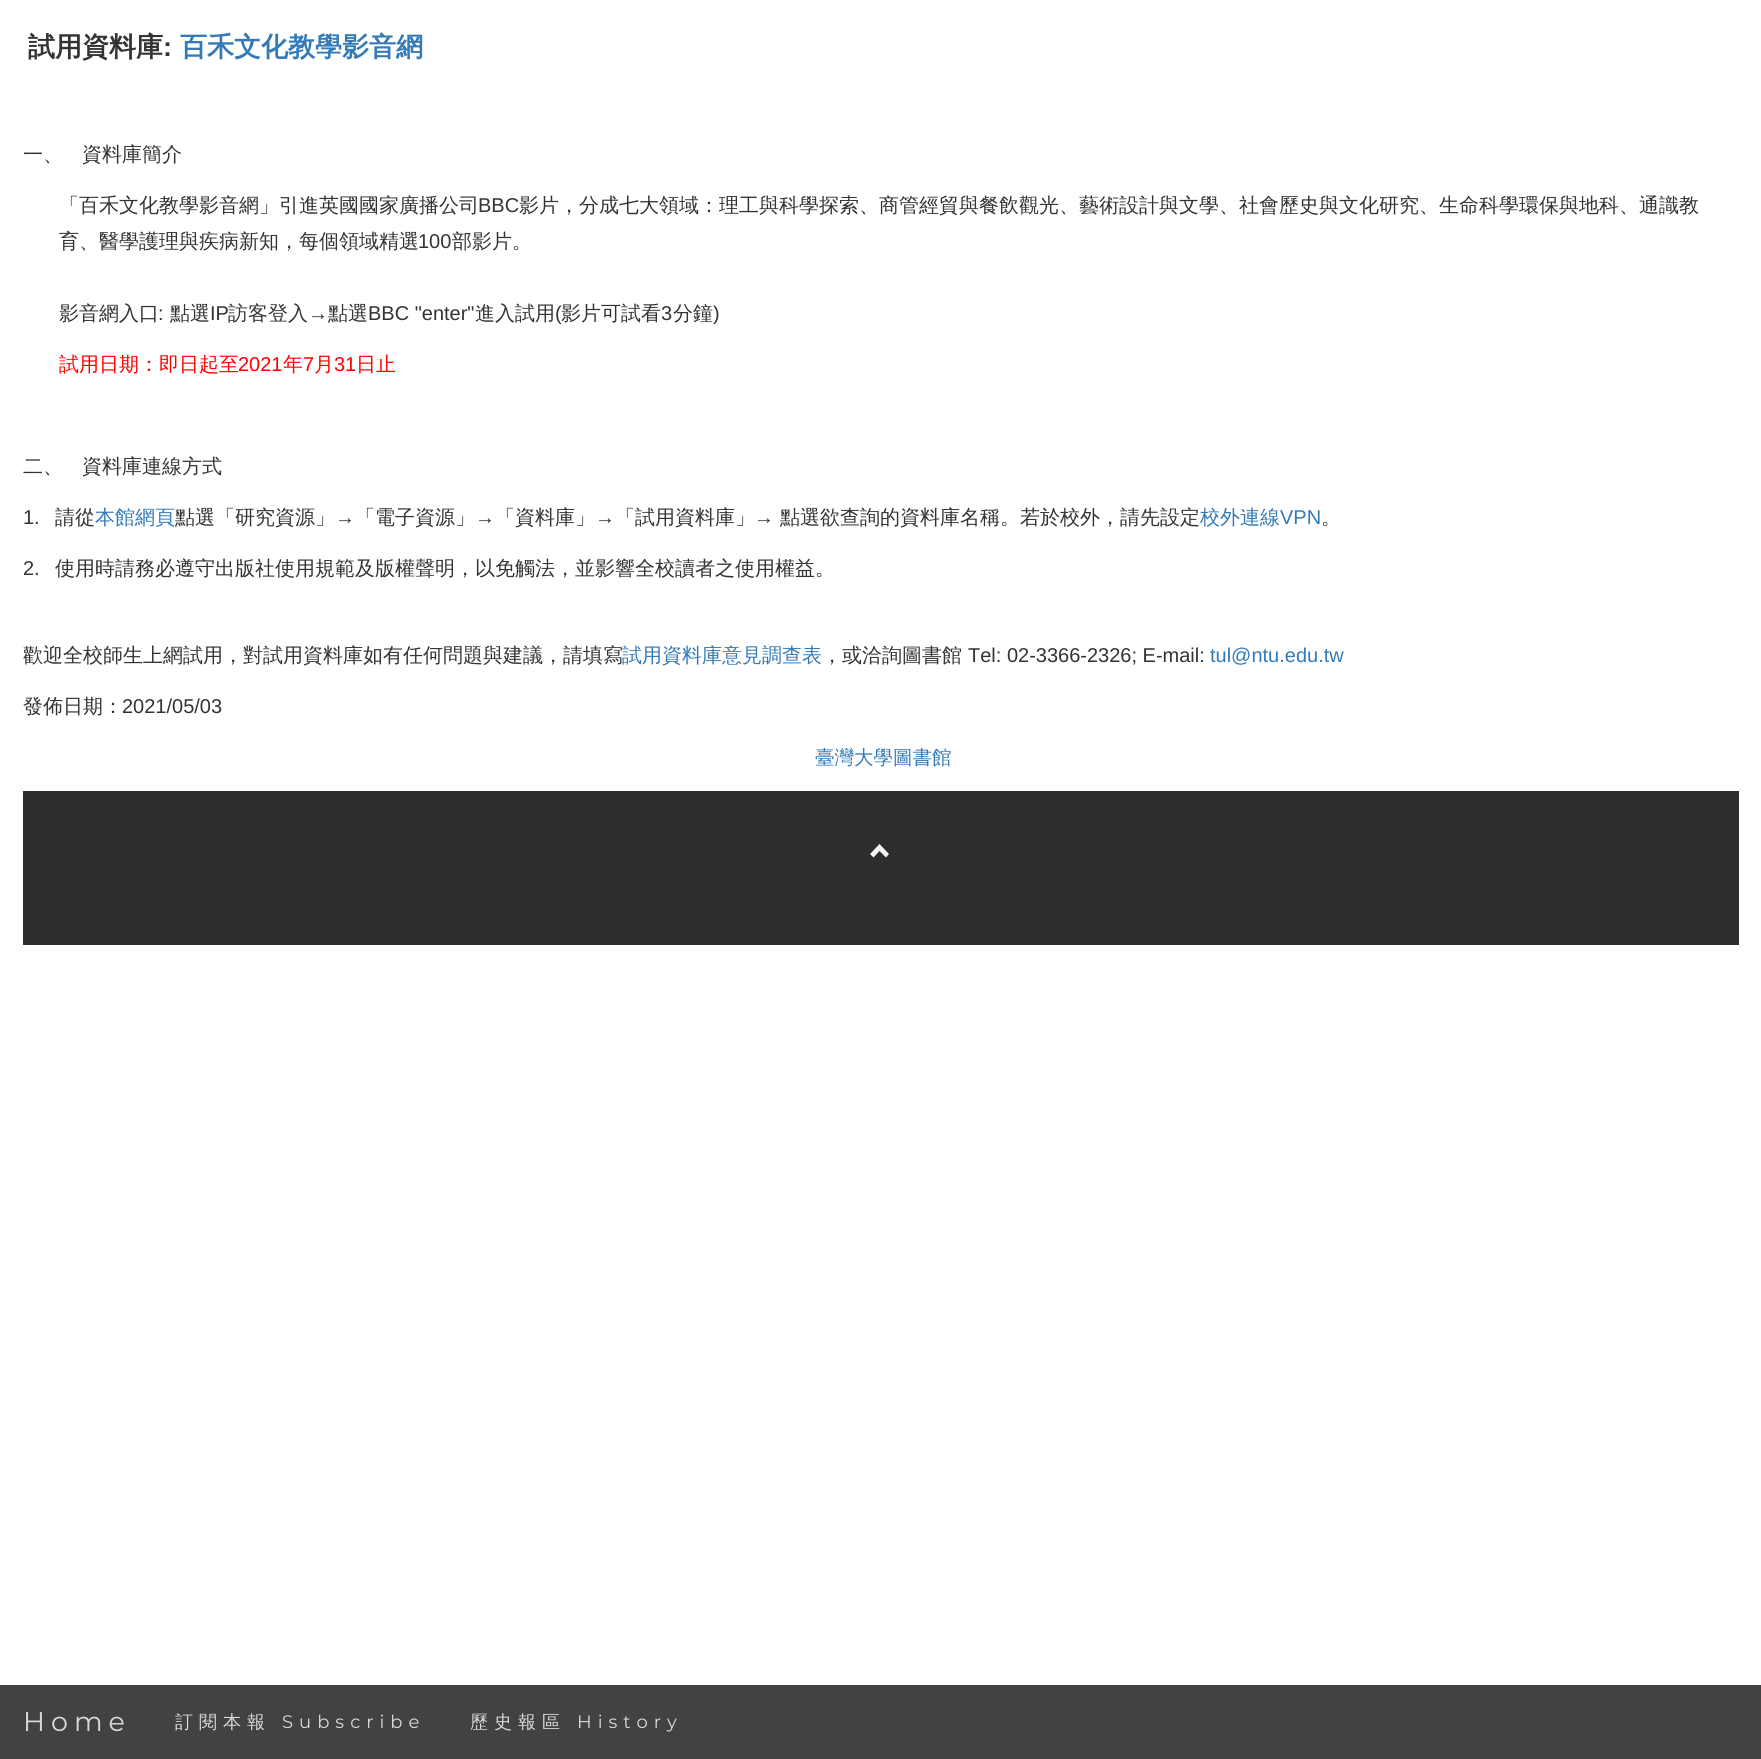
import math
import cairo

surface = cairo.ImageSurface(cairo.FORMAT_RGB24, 1761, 1759)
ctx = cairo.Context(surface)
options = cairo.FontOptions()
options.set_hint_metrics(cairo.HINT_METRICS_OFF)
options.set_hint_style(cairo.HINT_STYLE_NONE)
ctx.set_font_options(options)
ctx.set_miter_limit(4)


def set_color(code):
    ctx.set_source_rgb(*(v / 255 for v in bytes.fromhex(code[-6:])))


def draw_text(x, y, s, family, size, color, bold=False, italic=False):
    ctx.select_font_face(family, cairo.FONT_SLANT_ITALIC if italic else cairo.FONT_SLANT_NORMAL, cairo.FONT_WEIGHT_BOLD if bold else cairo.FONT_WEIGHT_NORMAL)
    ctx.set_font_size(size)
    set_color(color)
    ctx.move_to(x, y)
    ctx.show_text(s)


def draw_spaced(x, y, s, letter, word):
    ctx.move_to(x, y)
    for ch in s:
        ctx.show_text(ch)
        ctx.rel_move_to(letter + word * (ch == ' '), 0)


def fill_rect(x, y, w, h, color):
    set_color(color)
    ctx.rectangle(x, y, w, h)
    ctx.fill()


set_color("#ffffff")
ctx.paint()
draw_text(28, 56, "試用資料庫", "WenQuanYi Zen Hei", 27, "#333333", bold=True)
draw_text(163, 56, ":", "Liberation Sans", 27, "#333333", bold=True)
draw_text(180, 56, "百禾文化教學影音網", "WenQuanYi Zen Hei", 27, "#337ab7", bold=True)
draw_text(23, 161, "一、", "WenQuanYi Zen Hei Medium", 20, "#333333")
draw_text(82, 161, "資料庫簡介", "WenQuanYi Zen Hei Medium", 20, "#333333")
draw_text(59, 212, "「百禾文化教學影音網」引進英國國家廣播公司", "WenQuanYi Zen Hei Medium", 20, "#333333")
draw_text(478, 212, "BBC", "Liberation Sans", 20, "#333333")
draw_text(519, 212, "影片，分成七大領域：理工與科學探索、商管經貿與餐飲觀光、藝術設計與文學、社會歷史與文化研究、生命科學環保與地科、通識教", "WenQuanYi Zen Hei Medium", 20, "#333333")
draw_text(59, 248, "育、醫學護理與疾病新知，每個領域精選", "WenQuanYi Zen Hei Medium", 20, "#333333")
draw_text(418, 248, "100", "Liberation Sans", 20, "#333333")
draw_text(452, 248, "部影片。", "WenQuanYi Zen Hei Medium", 20, "#333333")
draw_text(59, 320, "影音網入口", "WenQuanYi Zen Hei Medium", 20, "#333333")
draw_text(158, 320, ":", "Liberation Sans", 20, "#333333")
draw_text(170, 320, "點選", "WenQuanYi Zen Hei Medium", 20, "#333333")
draw_text(210, 320, "IP", "Liberation Sans", 20, "#333333")
draw_text(228, 320, "訪客登入", "WenQuanYi Zen Hei Medium", 20, "#333333")
draw_text(308, 320, "→", "Liberation Sans", 20, "#333333")
draw_text(328, 320, "點選", "WenQuanYi Zen Hei Medium", 20, "#333333")
draw_text(368, 320, "BBC \"enter\"", "Liberation Sans", 20, "#333333")
draw_text(475, 320, "進入試用", "WenQuanYi Zen Hei Medium", 20, "#333333")
draw_text(555, 320, "(", "Liberation Sans", 20, "#333333")
draw_text(561, 320, "影片可試看", "WenQuanYi Zen Hei Medium", 20, "#333333")
draw_text(661, 320, "3", "Liberation Sans", 20, "#333333")
draw_text(673, 320, "分鐘", "WenQuanYi Zen Hei Medium", 20, "#333333")
draw_text(713, 320, ")", "Liberation Sans", 20, "#333333")
draw_text(59, 371, "試用日期：即日起至", "WenQuanYi Zen Hei Medium", 20, "#ff0000")
draw_text(238, 371, "2021", "Liberation Sans", 20, "#ff0000")
draw_text(283, 371, "年", "WenQuanYi Zen Hei Medium", 20, "#ff0000")
draw_text(303, 371, "7", "Liberation Sans", 20, "#ff0000")
draw_text(314, 371, "月", "WenQuanYi Zen Hei Medium", 20, "#ff0000")
draw_text(334, 371, "31", "Liberation Sans", 20, "#ff0000")
draw_text(356, 371, "日止", "WenQuanYi Zen Hei Medium", 20, "#ff0000")
draw_text(23, 473, "二、", "WenQuanYi Zen Hei Medium", 20, "#333333")
draw_text(82, 473, "資料庫連線方式", "WenQuanYi Zen Hei Medium", 20, "#333333")
draw_text(23, 524, "1.", "Liberation Sans", 20, "#333333")
draw_text(55, 524, "請從", "WenQuanYi Zen Hei Medium", 20, "#333333")
draw_text(95, 524, "本館網頁", "WenQuanYi Zen Hei Medium", 20, "#337ab7")
draw_text(175, 524, "點選「研究資源」", "WenQuanYi Zen Hei Medium", 20, "#333333")
draw_text(335, 524, "→", "Liberation Sans", 20, "#333333")
draw_text(355, 524, "「電子資源」", "WenQuanYi Zen Hei Medium", 20, "#333333")
draw_text(475, 524, "→", "Liberation Sans", 20, "#333333")
draw_text(495, 524, "「資料庫」", "WenQuanYi Zen Hei Medium", 20, "#333333")
draw_text(595, 524, "→", "Liberation Sans", 20, "#333333")
draw_text(615, 524, "「試用資料庫」", "WenQuanYi Zen Hei Medium", 20, "#333333")
draw_text(754, 524, "→", "Liberation Sans", 20, "#333333")
draw_text(780, 524, "點選欲查詢的資料庫名稱。若於校外，請先設定", "WenQuanYi Zen Hei Medium", 20, "#333333")
draw_text(1200, 524, "校外連線", "WenQuanYi Zen Hei Medium", 20, "#337ab7")
draw_text(1280, 524, "VPN", "Liberation Sans", 20, "#337ab7")
draw_text(1321, 524, "。", "WenQuanYi Zen Hei Medium", 20, "#333333")
draw_text(23, 575, "2.", "Liberation Sans", 20, "#333333")
draw_text(55, 575, "使用時請務必遵守出版社使用規範及版權聲明，以免觸法，並影響全校讀者之使用權益。", "WenQuanYi Zen Hei Medium", 20, "#333333")
draw_text(23, 662, "歡迎全校師生上網試用，對試用資料庫如有任何問題與建議，請填寫", "WenQuanYi Zen Hei Medium", 20, "#333333")
draw_text(622, 662, "試用資料庫意見調查表", "WenQuanYi Zen Hei Medium", 20, "#337ab7")
draw_text(822, 662, "，或洽詢圖書館", "WenQuanYi Zen Hei Medium", 20, "#333333")
draw_text(968, 662, "Tel: 02-3366-2326; E-mail:", "Liberation Sans", 20, "#333333")
draw_text(1210, 662, "tul@ntu.edu.tw", "Liberation Sans", 20, "#337ab7")
draw_text(23, 713, "發佈日期：", "WenQuanYi Zen Hei Medium", 20, "#333333")
draw_text(122, 713, "2021/05/03", "Liberation Sans", 20, "#333333")
draw_text(815, 764, "臺灣大學圖書館", "WenQuanYi Zen Hei Medium", 19.5, "#337ab7")
fill_rect(23, 791, 1716, 154, "#2d2d30")
set_color("#f5f5f5")
ctx.new_path()
ctx.move_to(889, 854)
ctx.line_to(886, 857.5)
ctx.line_to(879.5, 851)
ctx.line_to(873.5, 857.5)
ctx.line_to(870, 854)
ctx.line_to(879.5, 844)
ctx.close_path()
ctx.fill()
fill_rect(0, 1685, 1761, 74, "#424245")
ctx.select_font_face("Montserrat")
ctx.set_font_size(27)
set_color("#d9d9d9")
draw_spaced(23, 1731, "Home", 6, 0)
ctx.select_font_face("WenQuanYi Zen Hei Medium")
ctx.set_font_size(18)
draw_spaced(175, 1728, "訂閱本報", 6, 0)
ctx.select_font_face("Montserrat")
draw_spaced(282, 1728, "Subscribe", 6, 0)
ctx.select_font_face("WenQuanYi Zen Hei Medium")
draw_spaced(470, 1728, "歷史報區", 6, 0)
ctx.select_font_face("Montserrat")
draw_spaced(577, 1728, "History", 6, 0)
surface.write_to_png("output.png")
